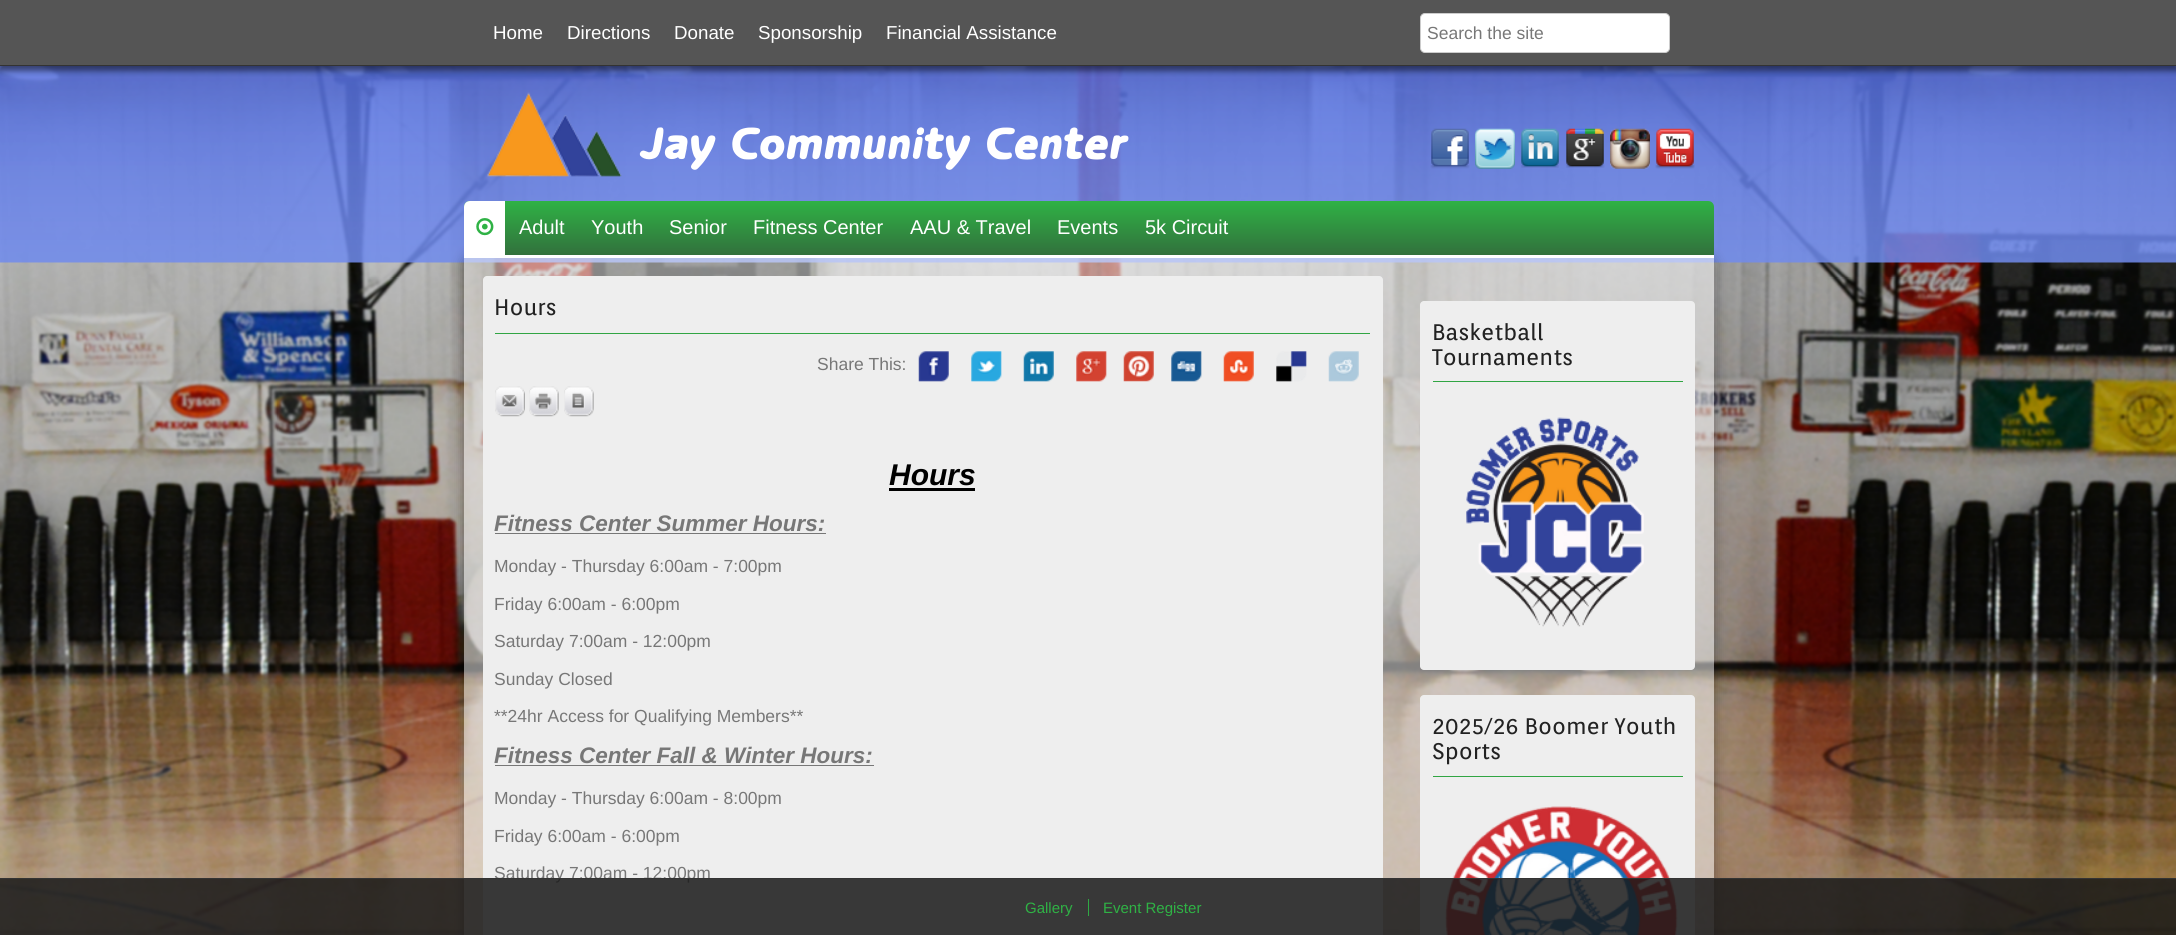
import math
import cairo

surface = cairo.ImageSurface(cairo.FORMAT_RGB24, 2176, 935)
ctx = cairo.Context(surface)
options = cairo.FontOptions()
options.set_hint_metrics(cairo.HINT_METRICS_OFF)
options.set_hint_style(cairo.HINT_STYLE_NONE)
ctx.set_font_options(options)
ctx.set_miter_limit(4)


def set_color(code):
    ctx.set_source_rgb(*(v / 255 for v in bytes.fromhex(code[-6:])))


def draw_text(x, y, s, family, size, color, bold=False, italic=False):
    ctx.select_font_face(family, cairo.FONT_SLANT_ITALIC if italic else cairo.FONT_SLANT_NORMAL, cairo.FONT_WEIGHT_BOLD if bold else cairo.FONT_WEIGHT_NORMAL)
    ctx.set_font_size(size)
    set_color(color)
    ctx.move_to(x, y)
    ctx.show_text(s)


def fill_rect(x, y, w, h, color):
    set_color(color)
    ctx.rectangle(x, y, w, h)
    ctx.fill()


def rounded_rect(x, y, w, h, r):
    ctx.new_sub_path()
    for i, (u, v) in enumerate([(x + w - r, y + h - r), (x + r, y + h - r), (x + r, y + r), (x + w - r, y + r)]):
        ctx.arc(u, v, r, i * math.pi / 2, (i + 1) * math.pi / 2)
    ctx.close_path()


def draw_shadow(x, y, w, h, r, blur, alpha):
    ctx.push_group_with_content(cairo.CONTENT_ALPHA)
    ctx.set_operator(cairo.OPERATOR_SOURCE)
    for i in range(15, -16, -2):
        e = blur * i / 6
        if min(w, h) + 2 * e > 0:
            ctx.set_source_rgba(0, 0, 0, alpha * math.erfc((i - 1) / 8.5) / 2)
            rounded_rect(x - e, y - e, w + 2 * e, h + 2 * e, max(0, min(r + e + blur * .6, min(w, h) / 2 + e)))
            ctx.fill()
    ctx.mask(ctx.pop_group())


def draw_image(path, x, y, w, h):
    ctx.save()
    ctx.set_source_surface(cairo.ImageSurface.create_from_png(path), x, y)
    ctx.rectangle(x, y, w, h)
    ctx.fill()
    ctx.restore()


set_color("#ffffff")
ctx.paint()
draw_image("assets/img24.png", 0, 66, 2176, 869)
draw_image("assets/img1.png", 0, 66, 2176, 197)
set_color("#000000")
draw_shadow(-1, 3, 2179, 68, 0, 3, 0.5)
fill_rect(0, 0, 2176, 65, "#555555")
fill_rect(0, 65, 2176, 1, "#333333")
draw_text(493, 39, "Home", "Liberation Sans", 18.75, "#ffffff")
draw_text(567, 39, "Directions", "Liberation Sans", 18.75, "#ffffff")
draw_text(674, 39, "Donate", "Liberation Sans", 18.75, "#ffffff")
draw_text(758, 39, "Sponsorship", "Liberation Sans", 18.75, "#ffffff")
draw_text(886, 39, "Financial Assistance", "Liberation Sans", 18.75, "#ffffff")
rounded_rect(1420.5, 13.5, 249, 39, 4.5)
ctx.fill_preserve()
set_color("#cccccc")
ctx.set_line_width(1)
ctx.stroke()
draw_text(1427, 39, "Search the site", "Liberation Sans", 17.5, "#777777")
draw_image("assets/img2.png", 487, 92, 135, 85)
draw_text(642, 159, "Jay Community Center", "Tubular", 45, "#ffffff")
draw_image("assets/img3.png", 1430, 128, 40, 41)
draw_image("assets/img4.png", 1475, 128, 40, 41)
draw_image("assets/img5.png", 1521, 128, 38, 40)
draw_image("assets/img6.png", 1566, 128, 39, 40)
draw_image("assets/img7.png", 1610, 128, 40, 41)
draw_image("assets/img8.png", 1655, 128, 40, 41)
ctx.save()
ctx.set_fill_rule(cairo.FILL_RULE_EVEN_ODD)
ctx.new_path()
ctx.move_to(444, 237)
ctx.line_to(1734, 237)
ctx.line_to(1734, 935)
ctx.line_to(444, 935)
ctx.close_path()
ctx.move_to(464, 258)
ctx.line_to(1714, 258)
ctx.line_to(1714, 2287)
ctx.curve_to(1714, 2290.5, 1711.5, 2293, 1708, 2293)
ctx.line_to(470, 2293)
ctx.curve_to(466.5, 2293, 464, 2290.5, 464, 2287)
ctx.close_path()
ctx.clip()
set_color("#000000")
draw_shadow(463, 256, 1252, 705, 8, 6, 0.3)
ctx.restore()
gradient = cairo.LinearGradient(1089, 201, 1089, 258)
gradient.add_color_stop_rgba(0, 0.184, 0.698, 0.271, 1)
gradient.add_color_stop_rgba(1, 0.196, 0.427, 0.235, 1)
ctx.set_source(gradient)
ctx.new_path()
ctx.move_to(470, 201)
ctx.line_to(1708, 201)
ctx.curve_to(1711.5, 201, 1714, 203.5, 1714, 207)
ctx.line_to(1714, 258)
ctx.line_to(464, 258)
ctx.line_to(464, 207)
ctx.curve_to(464, 203.5, 466.5, 201, 470, 201)
ctx.close_path()
ctx.fill()
set_color("#ffffff")
ctx.new_path()
ctx.move_to(470, 201)
ctx.line_to(505, 201)
ctx.line_to(505, 255)
ctx.line_to(464, 255)
ctx.line_to(464, 207)
ctx.curve_to(464, 203.5, 466.5, 201, 470, 201)
ctx.close_path()
ctx.fill()
draw_image("assets/img9.png", 476, 218, 18, 18)
draw_text(519, 234, "Adult", "Liberation Sans", 20, "#ffffff")
draw_text(591, 234, "Youth", "Liberation Sans", 20, "#ffffff")
draw_text(669, 234, "Senior", "Liberation Sans", 20, "#ffffff")
draw_text(753, 234, "Fitness Center", "Liberation Sans", 20, "#ffffff")
draw_text(910, 234, "AAU & Travel", "Liberation Sans", 20, "#ffffff")
draw_text(1057, 234, "Events", "Liberation Sans", 20, "#ffffff")
draw_text(1145, 234, "5k Circuit", "Liberation Sans", 20, "#ffffff")
fill_rect(464, 255, 1250, 3, "#ffffff")
ctx.set_source_rgba(1, 1, 1, 0.5)
ctx.rectangle(464, 258, 1250, 677)
ctx.fill()
set_color("#eeeeee")
rounded_rect(483, 276, 900, 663, 4)
ctx.fill()
fill_rect(495, 333, 875, 1, "#30a543")
draw_text(494, 315, "Hours", "Orienta", 22.5, "#222222")
draw_text(817, 370, "Share This:", "Liberation Sans", 17.5, "#777777")
draw_image("assets/img10.png", 918, 351, 31, 31)
draw_image("assets/img11.png", 971, 351, 31, 31)
draw_image("assets/img12.png", 1023, 351, 31, 31)
draw_image("assets/img13.png", 1076, 351, 31, 31)
draw_image("assets/img14.png", 1123, 351, 31, 31)
draw_image("assets/img15.png", 1171, 351, 31, 31)
draw_image("assets/img16.png", 1223, 351, 31, 31)
draw_image("assets/img17.png", 1276, 351, 31, 31)
draw_image("assets/img18.png", 1328, 351, 31, 31)
draw_image("assets/img19.png", 495, 386, 30, 31)
draw_image("assets/img20.png", 529, 386, 30, 31)
draw_image("assets/img21.png", 564, 386, 30, 31)
draw_text(889, 485, "Hours", "Liberation Sans", 30, "#000000", bold=True, italic=True)
fill_rect(889, 488, 86, 3, "#000000")
draw_text(494, 531, "Fitness Center Summer Hours:", "Liberation Sans", 22.5, "#777777", bold=True, italic=True)
fill_rect(495, 533, 331, 1, "#777777")
draw_text(494, 572, "Monday - Thursday 6:00am - 7:00pm", "Liberation Sans", 17.5, "#777777")
draw_text(494, 610, "Friday 6:00am - 6:00pm", "Liberation Sans", 17.5, "#777777")
draw_text(494, 647, "Saturday 7:00am - 12:00pm", "Liberation Sans", 17.5, "#777777")
draw_text(494, 685, "Sunday Closed", "Liberation Sans", 17.5, "#777777")
draw_text(494, 722, "**24hr Access for Qualifying Members**", "Liberation Sans", 17.5, "#777777")
draw_text(494, 763, "Fitness Center Fall & Winter Hours:", "Liberation Sans", 22.5, "#777777", bold=True, italic=True)
fill_rect(495, 765, 379, 1, "#777777")
draw_text(494, 804, "Monday - Thursday 6:00am - 8:00pm", "Liberation Sans", 17.5, "#777777")
draw_text(494, 842, "Friday 6:00am - 6:00pm", "Liberation Sans", 17.5, "#777777")
draw_text(494, 879, "Saturday 7:00am - 12:00pm", "Liberation Sans", 17.5, "#777777")
set_color("#eeeeee")
rounded_rect(1420, 301, 275, 369, 4)
ctx.fill()
fill_rect(1433, 381, 250, 1, "#30a543")
draw_text(1432, 340, "Basketball", "Orienta", 22.5, "#222222")
draw_text(1432, 365, "Tournaments", "Orienta", 22.5, "#222222")
draw_image("assets/img22.png", 1466, 417, 178, 210)
set_color("#eeeeee")
rounded_rect(1420, 695, 275, 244, 4)
ctx.fill()
fill_rect(1433, 776, 250, 1, "#30a543")
draw_text(1432, 734, "2025/26 Boomer Youth", "Orienta", 22.5, "#222222")
draw_text(1432, 759, "Sports", "Orienta", 22.5, "#222222")
draw_image("assets/img23.png", 1445, 806, 233, 129)
ctx.set_source_rgba(0.098, 0.098, 0.098, 0.85)
ctx.rectangle(0, 879, 2176, 56)
ctx.fill()
fill_rect(0, 878, 2176, 1, "#333333")
draw_text(1025, 913, "Gallery", "Liberation Sans", 15, "#2fb245")
fill_rect(1088, 899, 1, 17, "#2fa944")
draw_text(1103, 913, "Event Register", "Liberation Sans", 15, "#2fb245")
surface.write_to_png("output.png")
